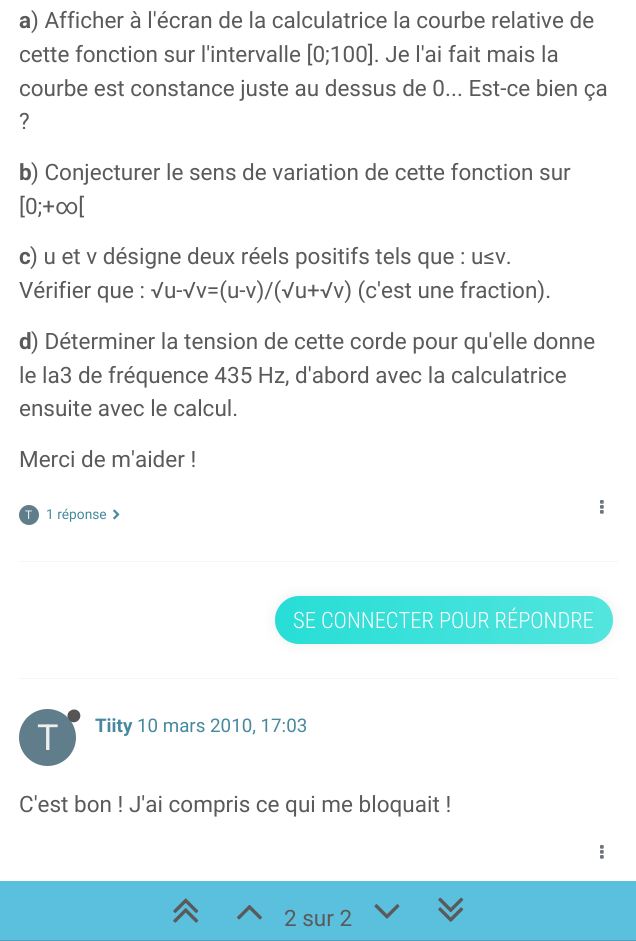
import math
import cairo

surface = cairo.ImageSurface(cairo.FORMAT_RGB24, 636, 941)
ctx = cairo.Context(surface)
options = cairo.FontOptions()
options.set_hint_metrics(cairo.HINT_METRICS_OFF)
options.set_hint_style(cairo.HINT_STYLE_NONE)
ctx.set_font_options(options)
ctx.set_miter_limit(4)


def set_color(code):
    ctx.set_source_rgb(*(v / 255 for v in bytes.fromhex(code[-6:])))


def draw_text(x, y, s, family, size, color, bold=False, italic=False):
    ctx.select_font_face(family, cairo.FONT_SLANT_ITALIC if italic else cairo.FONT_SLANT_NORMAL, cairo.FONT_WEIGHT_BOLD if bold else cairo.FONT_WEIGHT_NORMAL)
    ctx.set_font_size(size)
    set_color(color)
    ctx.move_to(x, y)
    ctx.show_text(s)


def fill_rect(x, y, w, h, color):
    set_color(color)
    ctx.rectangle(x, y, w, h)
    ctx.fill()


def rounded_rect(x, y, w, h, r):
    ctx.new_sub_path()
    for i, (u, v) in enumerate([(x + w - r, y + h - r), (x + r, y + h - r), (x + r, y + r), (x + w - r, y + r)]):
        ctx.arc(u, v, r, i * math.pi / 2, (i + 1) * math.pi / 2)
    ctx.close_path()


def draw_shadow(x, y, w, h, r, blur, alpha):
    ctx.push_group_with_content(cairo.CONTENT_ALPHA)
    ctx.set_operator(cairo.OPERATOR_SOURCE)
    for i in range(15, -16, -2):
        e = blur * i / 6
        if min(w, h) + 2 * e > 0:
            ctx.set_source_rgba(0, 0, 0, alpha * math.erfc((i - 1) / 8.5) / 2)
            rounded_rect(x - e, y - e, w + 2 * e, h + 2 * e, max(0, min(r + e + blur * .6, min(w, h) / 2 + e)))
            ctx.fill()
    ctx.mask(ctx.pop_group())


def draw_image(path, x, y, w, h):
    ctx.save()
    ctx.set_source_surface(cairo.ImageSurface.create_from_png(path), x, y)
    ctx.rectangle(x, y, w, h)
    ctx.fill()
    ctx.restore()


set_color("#ffffff")
ctx.paint()
draw_text(19, 28, "a", "Roboto", 22.5, "#5a5a5a", bold=True)
draw_text(31, 28, ") Afficher à l'écran de la calculatrice la courbe relative de", "Roboto", 22.5, "#5a5a5a")
draw_text(19, 62, "cette fonction sur l'intervalle [0;100]. Je l'ai fait mais la", "Roboto", 22.5, "#5a5a5a")
draw_text(19, 96, "courbe est constance juste au dessus de 0... Est-ce bien ça", "Roboto", 22.5, "#5a5a5a")
draw_text(19, 129, "?", "Roboto", 22.5, "#5a5a5a")
draw_text(19, 180, "b", "Roboto", 22.5, "#5a5a5a", bold=True)
draw_text(31, 180, ") Conjecturer le sens de variation de cette fonction sur", "Roboto", 22.5, "#5a5a5a")
draw_text(19, 214, "[0;+∞[", "Roboto", 22.5, "#5a5a5a")
draw_text(19, 264, "c", "Roboto", 22.5, "#5a5a5a", bold=True)
draw_text(30, 264, ") u et v désigne deux réels positifs tels que : u≤v.", "Roboto", 22.5, "#5a5a5a")
draw_text(19, 298, "Vérifier que : √u-√v=(u-v)/(√u+√v) (c'est une fraction).", "Roboto", 22.5, "#5a5a5a")
draw_text(19, 349, "d", "Roboto", 22.5, "#5a5a5a", bold=True)
draw_text(31, 349, ") Déterminer la tension de cette corde pour qu'elle donne", "Roboto", 22.5, "#5a5a5a")
draw_text(19, 383, "le la3 de fréquence 435 Hz, d'abord avec la calculatrice", "Roboto", 22.5, "#5a5a5a")
draw_text(19, 416, "ensuite avec le calcul.", "Roboto", 22.5, "#5a5a5a")
draw_text(19, 467, "Merci de m'aider !", "Roboto", 22.5, "#5a5a5a")
set_color("#607d8b")
ctx.new_path()
ctx.arc(29, 515, 10, 0, 2 * math.pi)
ctx.fill()
draw_text(25, 519, "T", "Roboto", 12, "#eeeeee")
draw_text(46, 519, "1 réponse", "Roboto", 13.75, "#46899d")
draw_image("assets/img1.png", 113, 509, 7, 11)
draw_image("assets/img2.png", 600, 500, 4, 14)
fill_rect(19, 561, 599, 1, "#f5f5f5")
set_color("#eeeeee")
draw_shadow(275, 596, 338, 48, 24, 6, 1)
gradient = cairo.LinearGradient(275, 620, 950, 620)
gradient.add_color_stop_rgba(0, 0.153, 0.871, 0.839, 1)
gradient.add_color_stop_rgba(0.51, 0.325, 0.898, 0.871, 1)
gradient.add_color_stop_rgba(1, 0.153, 0.871, 0.839, 1)
ctx.set_source(gradient)
rounded_rect(275, 596, 338, 48, 24)
ctx.fill()
draw_text(293, 628, "SE CONNECTER POUR RÉPONDRE", "Roboto Condensed Light", 22.5, "#ffffff")
fill_rect(19, 678, 599, 1, "#f5f5f5")
set_color("#607d8b")
ctx.new_path()
ctx.arc(47.5, 737.5, 28.5, 0, 2 * math.pi)
ctx.fill()
set_color("#555555")
ctx.new_path()
ctx.move_to(79.5, 712.5)
ctx.curve_to(83.5, 720, 72.5, 726.5, 68.5, 719)
ctx.curve_to(64, 712, 75, 705.5, 79.5, 712.5)
ctx.close_path()
ctx.fill()
draw_text(37, 750, "T", "Roboto", 36, "#eeeeee")
draw_text(95, 732, "Tiity", "Roboto", 18.75, "#46899d", bold=True)
draw_text(137, 732, "10 mars 2010, 17:03", "Roboto", 18.75, "#46899d")
draw_text(19, 812, "C'est bon ! J'ai compris ce qui me bloquait !", "Roboto", 22.5, "#5a5a5a")
draw_image("assets/img2.png", 600, 845, 4, 14)
fill_rect(0, 881, 636, 59, "#5bc0de")
fill_rect(0, 940, 636, 1, "#4da3bd")
draw_image("assets/img3.png", 173, 898, 26, 25)
draw_image("assets/img4.png", 237, 904, 25, 16)
draw_text(284, 926, "2 sur 2", "Roboto", 22.5, "#5a5a5a")
draw_image("assets/img5.png", 374, 904, 26, 15)
draw_image("assets/img6.png", 438, 897, 26, 25)
surface.write_to_png("output.png")
